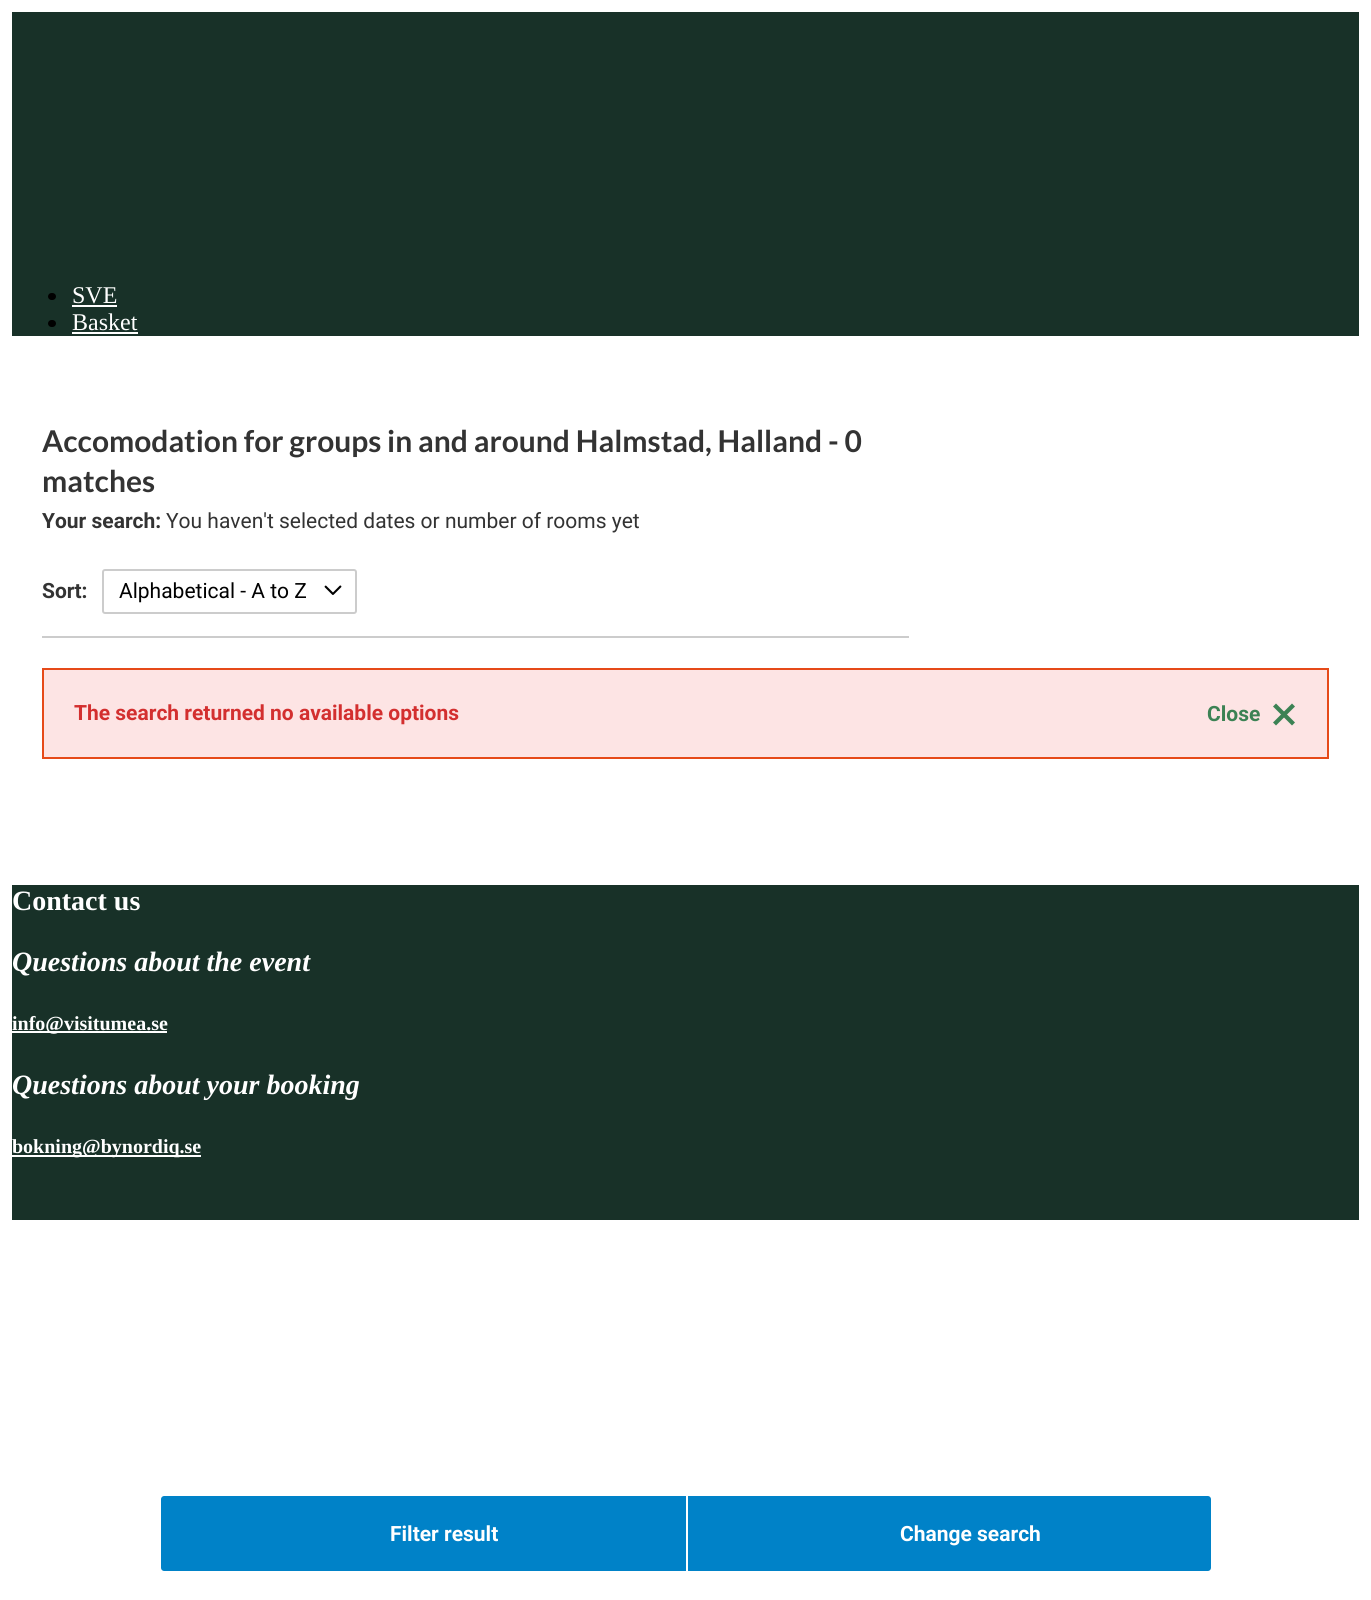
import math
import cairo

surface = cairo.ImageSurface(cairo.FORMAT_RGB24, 1371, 1600)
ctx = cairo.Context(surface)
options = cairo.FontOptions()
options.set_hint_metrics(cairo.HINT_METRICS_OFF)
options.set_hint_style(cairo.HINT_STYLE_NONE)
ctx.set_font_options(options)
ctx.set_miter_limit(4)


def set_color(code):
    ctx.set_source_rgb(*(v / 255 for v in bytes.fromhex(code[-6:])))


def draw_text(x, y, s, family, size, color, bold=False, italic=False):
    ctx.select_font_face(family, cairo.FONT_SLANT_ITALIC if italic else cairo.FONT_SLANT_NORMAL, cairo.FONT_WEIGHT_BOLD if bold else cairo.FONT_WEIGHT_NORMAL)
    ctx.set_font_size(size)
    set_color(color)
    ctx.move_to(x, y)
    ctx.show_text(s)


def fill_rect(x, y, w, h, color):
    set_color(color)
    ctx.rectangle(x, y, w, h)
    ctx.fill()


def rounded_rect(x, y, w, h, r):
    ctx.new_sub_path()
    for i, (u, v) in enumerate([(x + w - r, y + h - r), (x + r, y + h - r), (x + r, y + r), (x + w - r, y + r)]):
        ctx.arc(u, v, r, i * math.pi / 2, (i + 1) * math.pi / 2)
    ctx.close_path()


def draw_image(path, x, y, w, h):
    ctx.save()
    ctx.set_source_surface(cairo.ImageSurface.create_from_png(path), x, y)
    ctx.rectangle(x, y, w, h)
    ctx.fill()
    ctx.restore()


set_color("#ffffff")
ctx.paint()
fill_rect(12, 12, 1347, 324, "#183128")
set_color("#000000")
rounded_rect(48, 293, 8, 7, 3.5)
ctx.fill()
draw_text(72, 303, "SVE", "Liberation Serif", 24, "#ffffff")
fill_rect(72, 305, 45, 2, "#ffffff")
set_color("#000000")
rounded_rect(48, 320, 8, 7, 3.5)
ctx.fill()
draw_text(72, 330, "Basket", "Liberation Serif", 24, "#ffffff")
fill_rect(72, 332, 66, 2, "#ffffff")
draw_text(42, 452, "Accomodation for groups in and around Halmstad, Halland - 0", "Lato", 30, "#333333", bold=True)
draw_text(42, 492, "matches", "Lato", 30, "#333333", bold=True)
draw_text(42, 528, "Your search:", "Roboto", 21, "#333333", bold=True)
draw_text(166, 528, "You haven't selected dates or number of rooms yet", "Roboto", 21, "#333333")
fill_rect(42, 636, 867, 2, "#cccccc")
draw_text(42, 598, "Sort:", "Roboto", 21, "#333333", bold=True)
draw_image("assets/img1.png", 324, 585, 18, 10)
rounded_rect(103, 570, 253, 43, 2)
set_color("#cccccc")
ctx.stroke()
draw_text(119, 598, "Alphabetical - A to Z", "Roboto", 21, "#000000")
set_color("#fde4e4")
ctx.rectangle(43, 669, 1285, 89)
ctx.fill_preserve()
set_color("#e64a19")
ctx.stroke()
draw_text(74, 720, "The search returned no available options", "Roboto", 21, "#d32f2f", bold=True)
set_color("#3c8254")
ctx.new_path()
ctx.move_to(1276, 703.5)
ctx.line_to(1295, 722.5)
ctx.line_to(1292, 725.5)
ctx.line_to(1273, 706.5)
ctx.close_path()
ctx.fill()
draw_text(1207, 721, "Close", "Roboto", 21, "#3c8254", bold=True)
ctx.new_path()
ctx.move_to(1273, 722.5)
ctx.line_to(1292, 703.5)
ctx.line_to(1295, 706.5)
ctx.line_to(1276, 725.5)
ctx.close_path()
ctx.fill()
set_color("#0082c8")
ctx.new_path()
ctx.move_to(164, 1496)
ctx.line_to(686, 1496)
ctx.line_to(686, 1571)
ctx.line_to(164, 1571)
ctx.curve_to(162.5, 1571, 161, 1569.5, 161, 1568)
ctx.line_to(161, 1499)
ctx.curve_to(161, 1497.5, 162.5, 1496, 164, 1496)
ctx.close_path()
ctx.fill()
draw_text(390, 1541, "Filter result", "Roboto", 21, "#ffffff", bold=True)
set_color("#0082c8")
ctx.new_path()
ctx.move_to(686, 1496)
ctx.line_to(1208, 1496)
ctx.curve_to(1209.5, 1496, 1211, 1497.5, 1211, 1499)
ctx.line_to(1211, 1568)
ctx.curve_to(1211, 1569.5, 1209.5, 1571, 1208, 1571)
ctx.line_to(686, 1571)
ctx.close_path()
ctx.fill()
fill_rect(686, 1496, 2, 75, "#ffffff")
draw_text(900, 1541, "Change search", "Roboto", 21, "#ffffff", bold=True)
fill_rect(12, 885, 1347, 335, "#183128")
draw_text(12, 910, "Contact us", "Liberation Serif", 28, "#ffffff", bold=True)
draw_text(12, 971, "Questions about the event", "Liberation Serif", 28, "#ffffff", bold=True, italic=True)
fill_rect(12, 1031, 155, 2, "#ffffff")
draw_text(12, 1030, "info@visitumea.se", "Liberation Serif", 20, "#ffffff", bold=True)
draw_text(12, 1094, "Questions about your booking", "Liberation Serif", 28, "#ffffff", bold=True, italic=True)
fill_rect(12, 1155, 189, 2, "#ffffff")
draw_text(12, 1153, "bokning@bynordiq.se", "Liberation Serif", 20, "#ffffff", bold=True)
surface.write_to_png("output.png")
